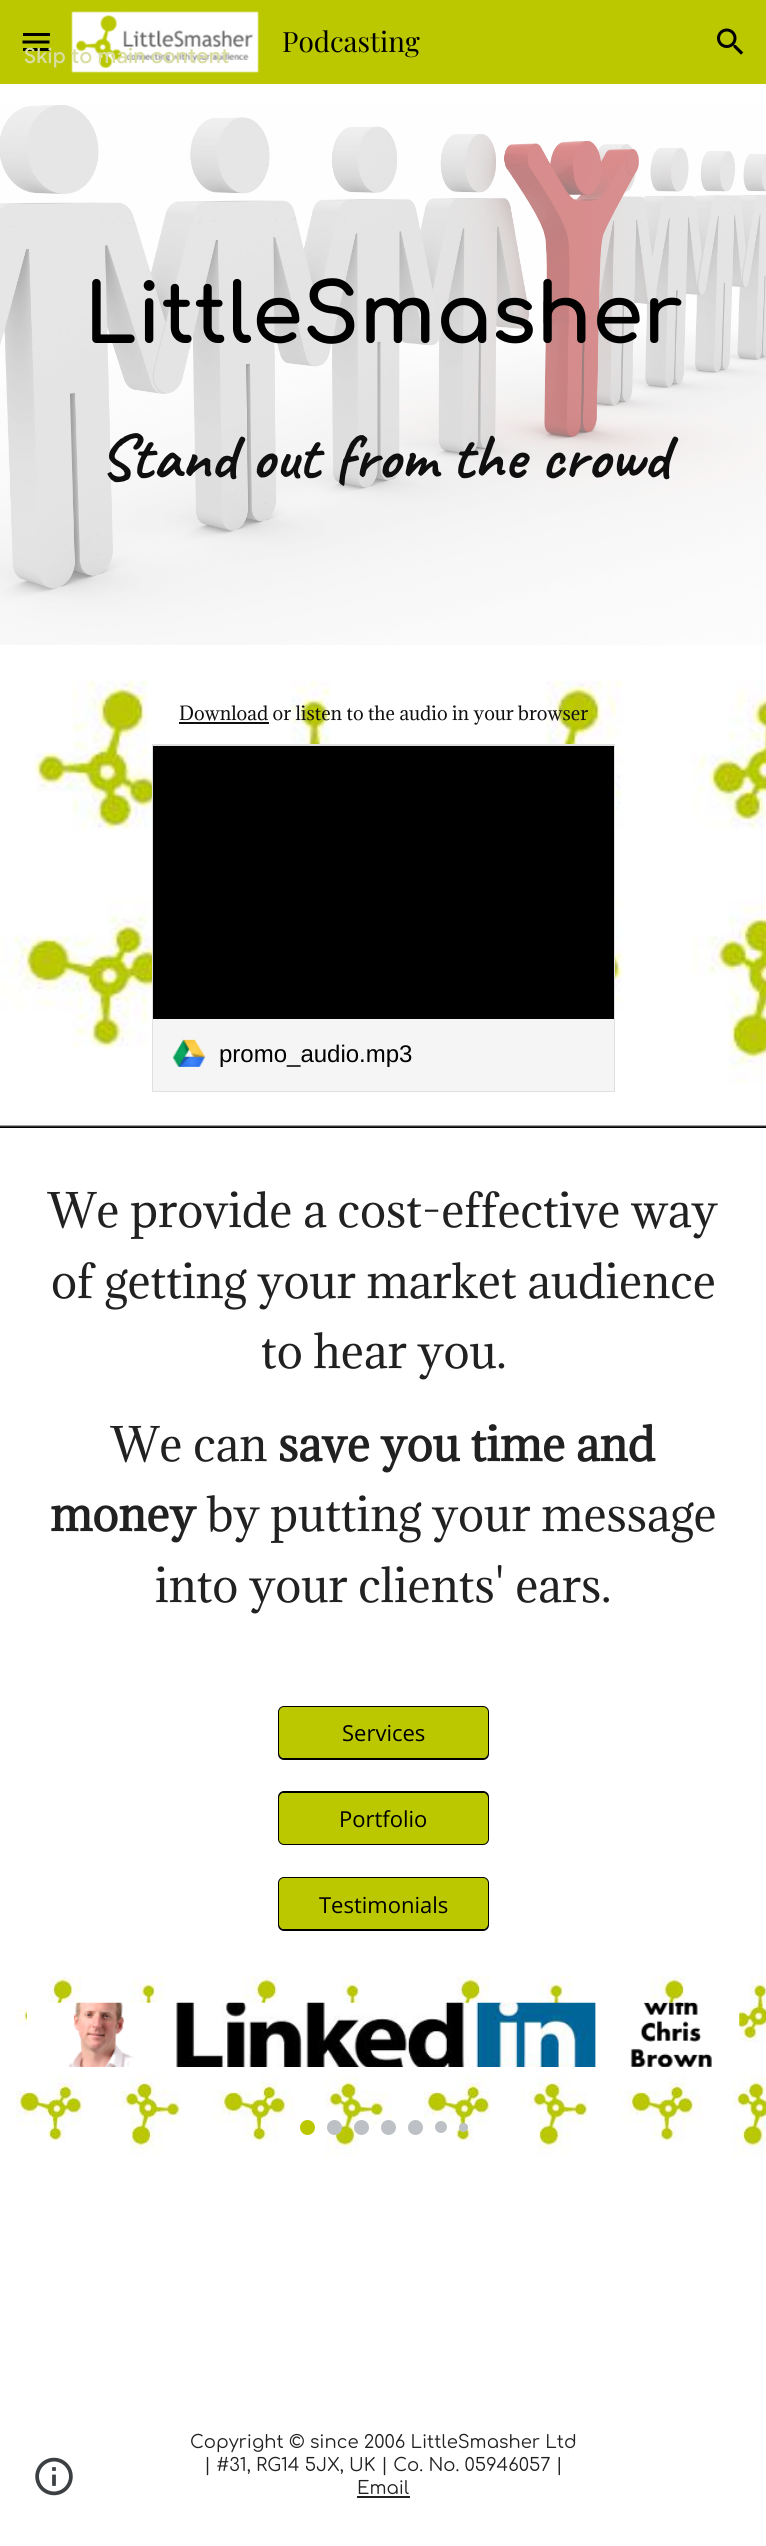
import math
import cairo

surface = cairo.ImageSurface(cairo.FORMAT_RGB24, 766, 2546)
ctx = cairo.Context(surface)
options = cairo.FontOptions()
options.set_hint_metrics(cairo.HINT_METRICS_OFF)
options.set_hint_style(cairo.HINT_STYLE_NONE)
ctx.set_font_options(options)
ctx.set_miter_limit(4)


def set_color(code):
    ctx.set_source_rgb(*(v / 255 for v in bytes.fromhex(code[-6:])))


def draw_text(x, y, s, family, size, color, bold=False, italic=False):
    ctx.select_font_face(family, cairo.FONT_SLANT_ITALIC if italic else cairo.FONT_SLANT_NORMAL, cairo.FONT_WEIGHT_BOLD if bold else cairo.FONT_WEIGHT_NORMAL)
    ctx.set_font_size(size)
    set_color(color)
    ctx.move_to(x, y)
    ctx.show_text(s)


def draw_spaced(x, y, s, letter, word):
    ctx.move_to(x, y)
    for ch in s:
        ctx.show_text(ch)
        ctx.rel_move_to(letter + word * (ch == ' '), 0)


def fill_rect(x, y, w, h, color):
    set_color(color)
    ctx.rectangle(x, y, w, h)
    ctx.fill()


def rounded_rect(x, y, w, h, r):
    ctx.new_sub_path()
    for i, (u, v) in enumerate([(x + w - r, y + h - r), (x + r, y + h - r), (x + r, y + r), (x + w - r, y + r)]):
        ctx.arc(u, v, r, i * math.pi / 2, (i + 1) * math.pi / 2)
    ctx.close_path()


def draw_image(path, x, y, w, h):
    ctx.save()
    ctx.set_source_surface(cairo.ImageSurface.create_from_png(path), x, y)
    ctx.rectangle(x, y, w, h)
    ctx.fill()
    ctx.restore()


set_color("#ffffff")
ctx.paint()
fill_rect(0, 0, 766, 84, "#bbc800")
fill_rect(23, 33, 27, 3, "#000000")
ctx.new_path()
ctx.move_to(22.5, 42)
ctx.line_to(49.5, 42)
ctx.set_line_width(3)
ctx.stroke()
fill_rect(23, 48, 27, 3, "#000000")
draw_image("assets/img1.png", 71, 11, 188, 62)
draw_text(282, 52, "Podcasting", "Playfair Display", 28, "#000000")
draw_image("assets/img2.png", 717, 28, 27, 27)
draw_image("assets/img3.png", 0, 105, 766, 540)
draw_text(84, 343, "LittleSmasher", "Comfortaa", 82, "#000000", bold=True)
draw_text(99, 478, "Stand out from the crowd", "Caveat", 64, "#0f0f0f", bold=True)
draw_image("assets/img4.png", 0, 679, 766, 449)
fill_rect(179, 722, 90, 2, "#0f0f0f")
draw_text(179, 720, "Download or listen to the audio in your browser", "Adamina", 18, "#0f0f0f")
ctx.rectangle(153, 745, 461, 346)
set_color("#e0e0e0")
ctx.set_line_width(2)
ctx.stroke()
fill_rect(153, 746, 461, 273, "#000000")
fill_rect(153, 1019, 461, 72, "#f5f5f5")
draw_image("assets/img5.png", 173, 1039, 32, 28)
draw_text(219, 1062, "promo_audio.mp3", "Liberation Sans", 24, "#000000")
draw_text(48, 1227, "We provide a cost-effective way", "Adamina", 44, "#212121")
draw_text(51, 1298, "of getting your market audience", "Adamina", 44, "#212121")
draw_text(261, 1368, "to hear you.", "Adamina", 44, "#212121")
draw_text(111, 1461, "We can", "Adamina", 44, "#212121")
draw_text(278, 1461, "save you time and", "Adamina", 44, "#212121", bold=True)
draw_text(50, 1531, "money", "Adamina", 44, "#212121", bold=True)
draw_text(207, 1531, "by putting your message", "Adamina", 44, "#212121")
draw_text(155, 1602, "into your clients' ears.", "Adamina", 44, "#212121")
rounded_rect(279, 1707, 209, 52, 5)
set_color("#000000")
ctx.stroke()
set_color("#bbc800")
rounded_rect(279, 1707, 209, 51, 5)
ctx.fill()
draw_text(342, 1741, "Services", "Open Sans", 22, "#000000")
rounded_rect(279, 1792, 209, 52, 5)
ctx.stroke()
set_color("#bbc800")
rounded_rect(279, 1793, 209, 51, 5)
ctx.fill()
draw_text(339, 1827, "Portfolio", "Open Sans", 22, "#000000")
rounded_rect(279, 1878, 209, 52, 5)
ctx.stroke()
set_color("#bbc800")
rounded_rect(279, 1878, 209, 51, 5)
ctx.fill()
draw_text(319, 1913, "Testimonials", "Open Sans", 22, "#000000")
draw_image("assets/img6.png", 15, 1975, 751, 182)
draw_image("assets/img7.png", 27, 2002, 713, 65)
set_color("#bbc800")
ctx.arc(307.5, 2127.5, 7.5, 0, 2 * math.pi)
ctx.fill()
set_color("#bdc1c6")
ctx.arc(334.5, 2127.5, 7.5, 0, 2 * math.pi)
ctx.fill()
ctx.arc(361.5, 2127.5, 7.5, 0, 2 * math.pi)
ctx.fill()
ctx.arc(388.5, 2127.5, 7.5, 0, 2 * math.pi)
ctx.fill()
ctx.arc(415.5, 2127.5, 7.5, 0, 2 * math.pi)
ctx.fill()
ctx.arc(441, 2127, 6, 0, 2 * math.pi)
ctx.fill()
ctx.arc(463.5, 2127.5, 4.5, 0, 2 * math.pi)
ctx.fill()
draw_image("assets/img8.png", 35, 2457, 38, 39)
draw_text(190, 2448, "Copyright © since 2006 LittleSmasher Ltd", "Comfortaa", 18, "#212121")
draw_text(204, 2471, "| #31, RG14 5JX, UK | Co. No. 05946057 |", "Comfortaa", 18, "#212121")
draw_text(357, 2494, "Email", "Comfortaa", 18, "#212121")
fill_rect(357, 2496, 53, 2, "#212121")
ctx.select_font_face("Google Sans Medium")
ctx.set_font_size(21)
set_color("#d9dda1")
draw_spaced(24, 63, "Skip to main content", 0.25, 0)
surface.write_to_png("output.png")
